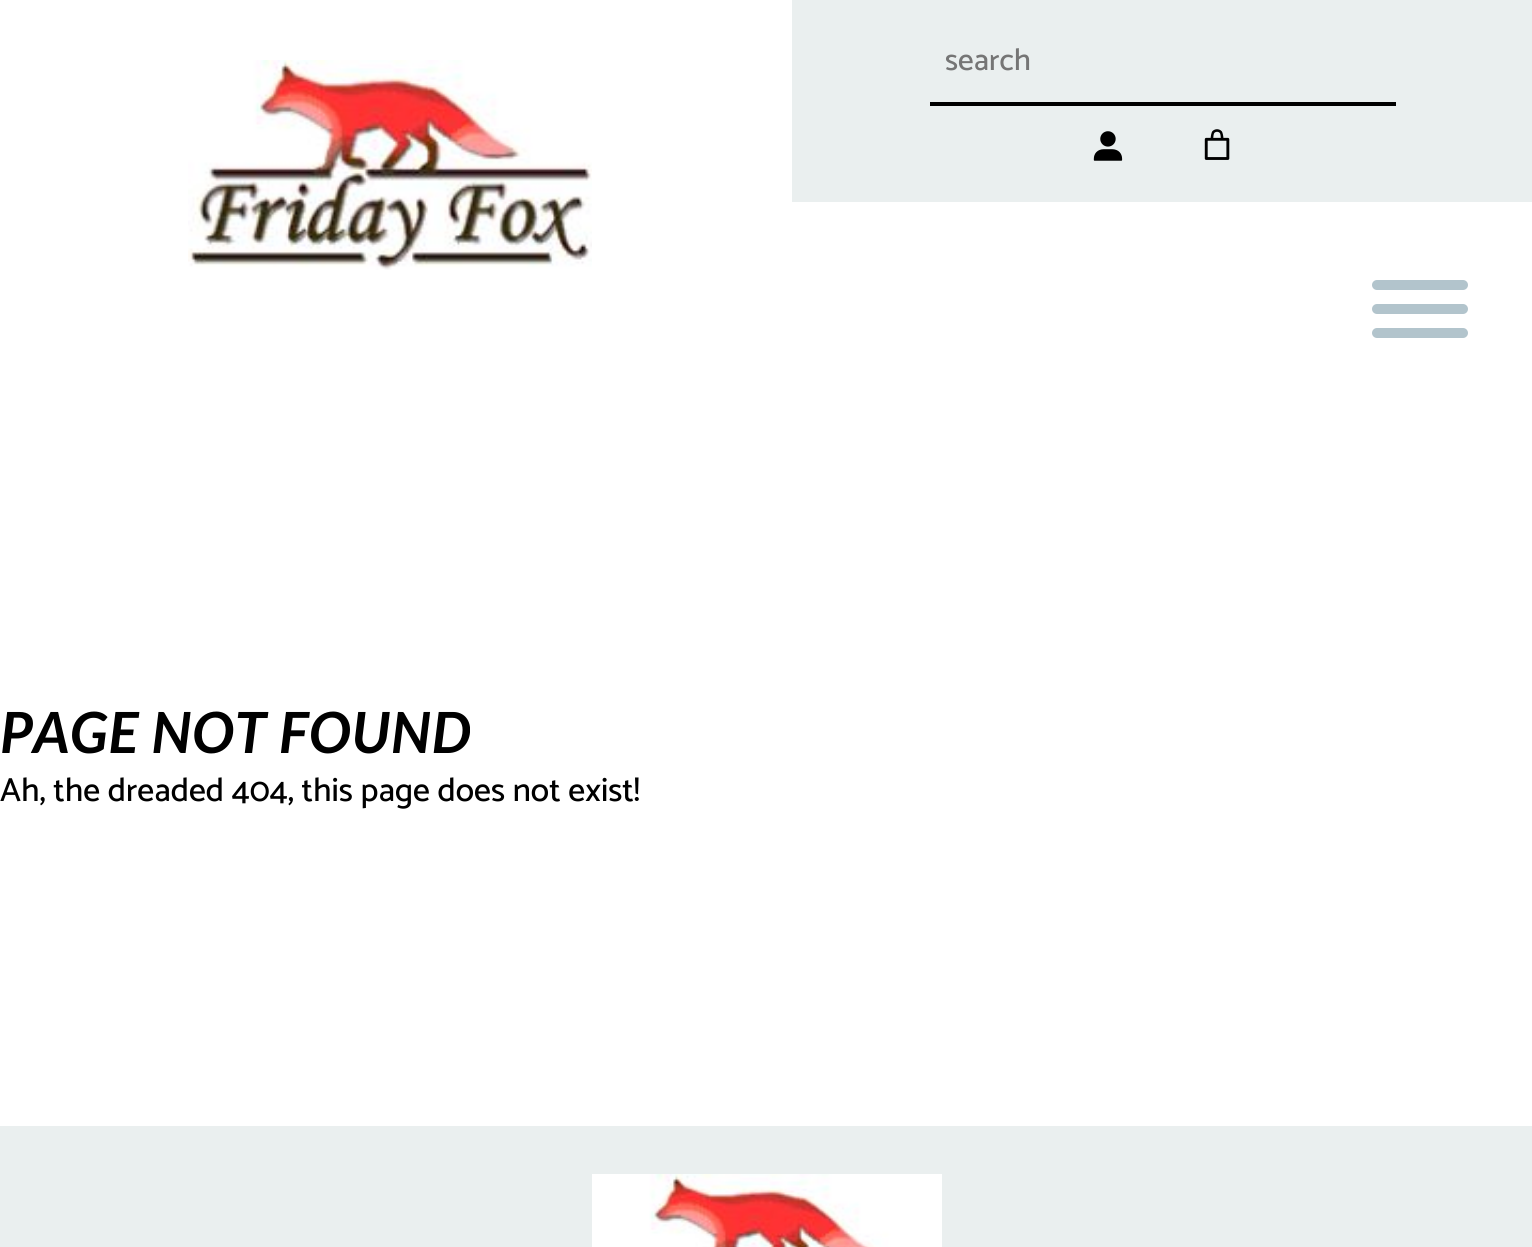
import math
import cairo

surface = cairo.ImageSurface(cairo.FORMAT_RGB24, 1532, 1247)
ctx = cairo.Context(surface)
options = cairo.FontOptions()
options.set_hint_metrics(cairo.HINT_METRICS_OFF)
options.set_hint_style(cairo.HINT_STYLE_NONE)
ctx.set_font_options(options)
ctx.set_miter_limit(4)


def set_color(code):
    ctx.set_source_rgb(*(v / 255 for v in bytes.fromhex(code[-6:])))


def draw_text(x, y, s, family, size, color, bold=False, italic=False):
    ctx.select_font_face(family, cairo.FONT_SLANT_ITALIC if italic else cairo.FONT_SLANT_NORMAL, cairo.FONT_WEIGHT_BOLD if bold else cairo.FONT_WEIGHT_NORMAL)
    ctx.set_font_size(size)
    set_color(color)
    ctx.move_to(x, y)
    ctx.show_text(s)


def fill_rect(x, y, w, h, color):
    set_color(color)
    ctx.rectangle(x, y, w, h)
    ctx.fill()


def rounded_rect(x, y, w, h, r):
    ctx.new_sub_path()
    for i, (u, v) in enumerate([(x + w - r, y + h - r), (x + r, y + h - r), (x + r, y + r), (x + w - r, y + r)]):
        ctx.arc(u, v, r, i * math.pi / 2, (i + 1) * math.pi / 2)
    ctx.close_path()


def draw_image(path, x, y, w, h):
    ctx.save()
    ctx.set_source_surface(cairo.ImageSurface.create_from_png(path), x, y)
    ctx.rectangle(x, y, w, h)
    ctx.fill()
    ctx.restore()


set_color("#ffffff")
ctx.paint()
draw_image("assets/img1.png", 188, 60, 404, 210)
fill_rect(792, 0, 740, 202, "#eaefef")
fill_rect(930, 102, 466, 4, "#000000")
draw_text(945, 70, "search", "Catamaran Medium", 31, "#757575")
draw_image("assets/img2.png", 1093, 131, 30, 30)
draw_image("assets/img3.png", 1204, 129, 26, 31)
set_color("#b2c4cc")
rounded_rect(1372, 280, 96, 10, 5)
ctx.fill()
rounded_rect(1372, 304, 96, 10, 5)
ctx.fill()
rounded_rect(1372, 328, 96, 10, 5)
ctx.fill()
draw_text(0, 753, "PAGE NOT FOUND", "Lato", 56.75, "#000000", bold=True, italic=True)
draw_text(0, 801, "Ah, the dreaded 404, this page does not exist!", "Catamaran Medium", 33.5, "#000000")
fill_rect(0, 1126, 1532, 121, "#eaefef")
draw_image("assets/img4.png", 592, 1174, 350, 73)
surface.write_to_png("output.png")
